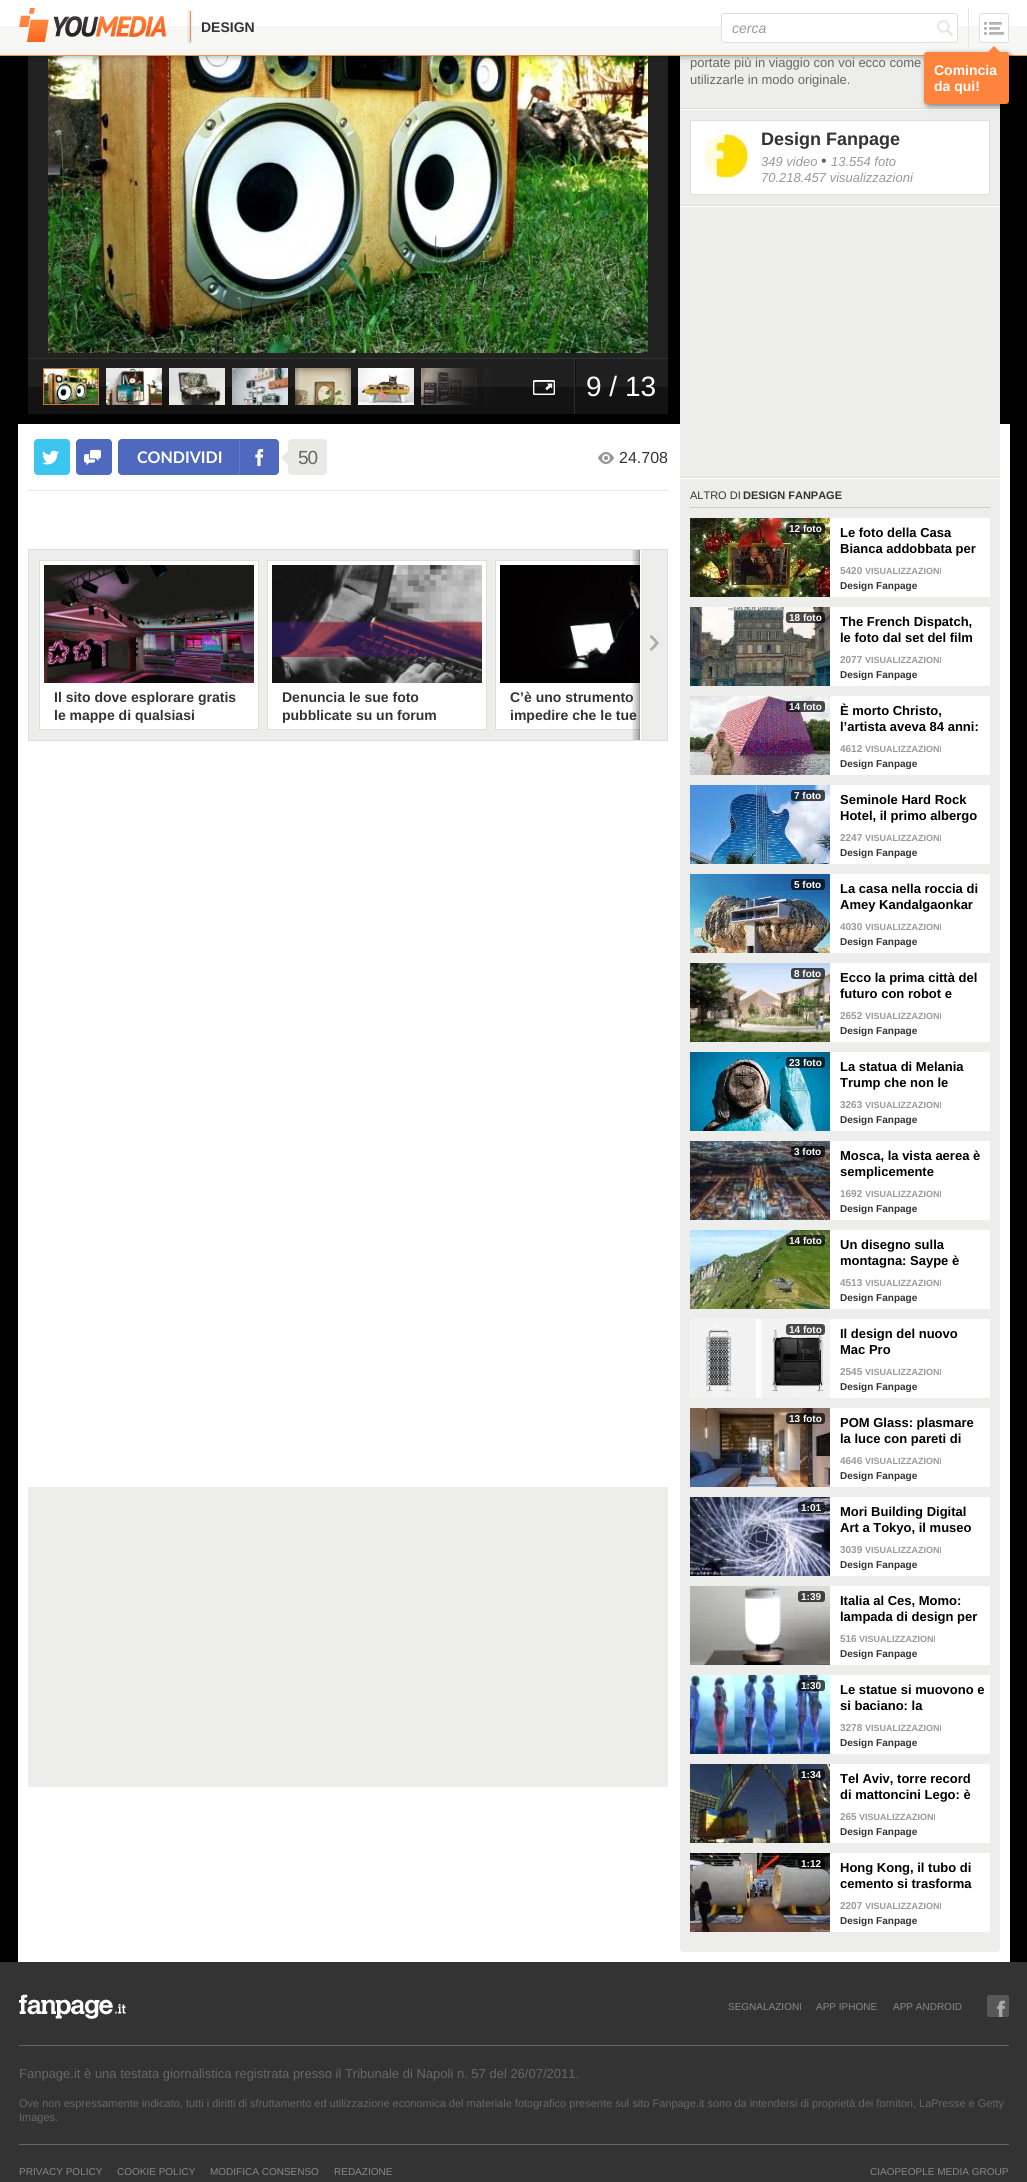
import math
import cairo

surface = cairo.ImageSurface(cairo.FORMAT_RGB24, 1027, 2182)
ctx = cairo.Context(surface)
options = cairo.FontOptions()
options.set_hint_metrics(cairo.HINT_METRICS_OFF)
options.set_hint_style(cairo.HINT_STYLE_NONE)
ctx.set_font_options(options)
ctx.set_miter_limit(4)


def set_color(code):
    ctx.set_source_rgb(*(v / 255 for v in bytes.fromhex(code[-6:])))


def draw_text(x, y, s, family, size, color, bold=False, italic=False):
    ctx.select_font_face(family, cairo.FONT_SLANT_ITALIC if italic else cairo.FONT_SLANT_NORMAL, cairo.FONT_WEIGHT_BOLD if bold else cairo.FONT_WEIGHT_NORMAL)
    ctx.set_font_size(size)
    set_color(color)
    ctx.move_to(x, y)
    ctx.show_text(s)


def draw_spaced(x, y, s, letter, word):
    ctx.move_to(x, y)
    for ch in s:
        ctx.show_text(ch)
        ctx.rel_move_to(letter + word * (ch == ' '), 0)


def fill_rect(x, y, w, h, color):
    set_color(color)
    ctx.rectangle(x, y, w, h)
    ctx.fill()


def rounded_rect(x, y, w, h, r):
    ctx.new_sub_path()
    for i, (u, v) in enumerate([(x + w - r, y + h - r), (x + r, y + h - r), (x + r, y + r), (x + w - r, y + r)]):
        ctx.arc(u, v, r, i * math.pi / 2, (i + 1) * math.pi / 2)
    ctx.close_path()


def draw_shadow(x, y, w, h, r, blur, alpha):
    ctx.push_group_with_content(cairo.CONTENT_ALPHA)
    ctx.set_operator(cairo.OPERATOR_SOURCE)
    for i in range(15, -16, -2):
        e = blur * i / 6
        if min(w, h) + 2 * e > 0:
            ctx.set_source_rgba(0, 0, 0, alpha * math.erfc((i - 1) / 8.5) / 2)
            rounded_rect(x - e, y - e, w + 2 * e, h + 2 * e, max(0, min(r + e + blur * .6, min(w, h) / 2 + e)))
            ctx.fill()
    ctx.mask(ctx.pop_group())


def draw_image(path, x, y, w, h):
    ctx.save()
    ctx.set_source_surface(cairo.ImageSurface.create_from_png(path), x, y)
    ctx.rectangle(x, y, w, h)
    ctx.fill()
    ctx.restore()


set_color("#000000")
ctx.paint()
fill_rect(28, 56, 640, 302, "#212121")
draw_image("assets/img4.png", 48, 56, 600, 297)
fill_rect(18, 424, 992, 1538, "#ffffff")
set_color("#ededeb")
rounded_rect(680, -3, 320, 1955, 3)
ctx.fill()
set_color("#000000")
draw_shadow(0, 1, 1027, 56, 0, 3, 0.3)
fill_rect(0, 0, 1027, 26, "#ffffff")
fill_rect(0, 26, 1027, 29, "#f7f7f5")
fill_rect(0, 55, 1027, 1, "#fe8d45")
draw_image("assets/img1.png", 19, 8, 147, 34)
set_color("#000000")
draw_shadow(189, 11, 1, 31, 0, 1.5, 0.2)
fill_rect(190, 11, 1, 31, "#fe8d45")
draw_text(201, 32, "DESIGN", "Liberation Sans", 14, "#333333", bold=True)
set_color("#ffffff")
rounded_rect(721, 13, 237, 30, 3)
ctx.fill()
draw_image("assets/img2.png", 937, 20, 16, 16)
rounded_rect(721.5, 13.5, 236, 29, 2.5)
set_color("#dedede")
ctx.set_line_width(1)
ctx.stroke()
draw_text(732, 33, "cerca", "Liberation Sans", 14, "#999999", italic=True)
fill_rect(968, 8, 1, 39, "#e6e6e3")
set_color("#ffffff")
rounded_rect(979, 13, 30, 30, 3)
ctx.fill()
draw_image("assets/img3.png", 984, 22, 20, 13)
rounded_rect(979.5, 13.5, 29, 29, 2.5)
set_color("#dedede")
ctx.stroke()
fill_rect(680, 108, 320, 1, "#dedede")
fill_rect(680, 109, 320, 1, "#ffffff")
set_color("#000000")
draw_shadow(926, 54, 85, 52, 3, 3, 0.5)
set_color("#fe843d")
rounded_rect(924, 52, 85, 52, 3)
ctx.fill()
ctx.new_path()
ctx.move_to(1002, 54)
ctx.line_to(986, 54)
ctx.line_to(994, 46)
ctx.close_path()
ctx.fill()
draw_text(934, 75, "Comincia", "Liberation Sans", 14, "#ffffff", bold=True)
draw_text(934, 91, "da qui!", "Liberation Sans", 14, "#ffffff", bold=True)
fill_rect(28, 387, 640, 27, "#131313")
fill_rect(28, 359, 640, 28, "#1f1f1f")
fill_rect(28, 358, 640, 1, "#313131")
ctx.rectangle(43.5, 368.5, 55, 36)
set_color("#da6d31")
ctx.stroke()
draw_image("assets/img5.png", 44, 369, 54, 35)
draw_image("assets/img6.png", 106, 368, 56, 37)
draw_image("assets/img7.png", 169, 368, 56, 37)
draw_image("assets/img8.png", 232, 368, 56, 37)
draw_image("assets/img9.png", 295, 368, 56, 37)
draw_image("assets/img10.png", 358, 368, 56, 37)
draw_image("assets/img11.png", 421, 368, 56, 37)
draw_image("assets/img12.png", 484, 368, 7, 37)
draw_image("assets/img13.png", 421, 368, 93, 37)
fill_rect(574, 359, 1, 55, "#313131")
draw_image("assets/img14.png", 533, 380, 22, 15)
fill_rect(575, 359, 1, 55, "#0f0f0f")
draw_text(586, 396, "9 / 13", "Liberation Sans", 28, "#ffffff")
draw_text(690, 67, "portate più in viaggio con voi ecco come", "Liberation Sans", 13, "#666666")
draw_text(690, 84, "utilizzarle in modo originale.", "Liberation Sans", 13, "#666666")
set_color("#ffffff")
ctx.rectangle(690.5, 120.5, 299, 74)
ctx.fill_preserve()
set_color("#dedede")
ctx.stroke()
draw_image("assets/img15.png", 703, 131, 47, 49)
draw_text(761, 145, "Design Fanpage", "Liberation Sans", 18, "#333333", bold=True)
draw_text(761, 166, "349 video", "Liberation Sans", 13, "#999999", italic=True)
draw_text(821, 166, "•", "Liberation Sans", 16, "#666666")
draw_text(831, 166, "13.554 foto", "Liberation Sans", 13, "#999999", italic=True)
draw_text(761, 182, "70.218.457 visualizzazioni", "Liberation Sans", 13, "#999999", italic=True)
fill_rect(680, 205, 320, 1, "#dedede")
fill_rect(680, 206, 320, 1, "#ffffff")
fill_rect(680, 477, 320, 1, "#dedede")
fill_rect(680, 478, 320, 1, "#ffffff")
fill_rect(690, 507, 300, 1, "#cccccc")
draw_text(690, 499, "ALTRO DI", "Liberation Sans", 11, "#333333")
draw_text(743, 499, "DESIGN FANPAGE", "Liberation Sans", 11, "#333333", bold=True)
fill_rect(830, 518, 160, 79, "#ffffff")
draw_image("assets/img16.png", 690, 518, 140, 79)
ctx.set_source_rgba(0, 0, 0, 0.7)
rounded_rect(786, 523, 39, 11, 3)
ctx.fill()
draw_text(789, 532, "12 foto", "Liberation Sans", 10, "#ffffff", bold=True)
draw_text(840, 537, "Le foto della Casa", "Liberation Sans", 13, "#000000", bold=True)
draw_text(840, 553, "Bianca addobbata per", "Liberation Sans", 13, "#000000", bold=True)
draw_text(840, 574, "5420", "Liberation Sans", 10, "#999999", bold=True)
draw_text(865, 574, "VISUALIZZAZIONI", "Liberation Sans", 9, "#999999", bold=True)
draw_text(840, 589, "Design Fanpage", "Liberation Sans", 10, "#333333", bold=True)
fill_rect(830, 607, 160, 79, "#ffffff")
draw_image("assets/img17.png", 690, 607, 140, 79)
ctx.set_source_rgba(0, 0, 0, 0.7)
rounded_rect(786, 612, 39, 11, 3)
ctx.fill()
draw_text(789, 621, "18 foto", "Liberation Sans", 10, "#ffffff", bold=True)
draw_text(840, 626, "The French Dispatch,", "Liberation Sans", 13, "#000000", bold=True)
draw_text(840, 642, "le foto dal set del film", "Liberation Sans", 13, "#000000", bold=True)
draw_text(840, 663, "2077", "Liberation Sans", 10, "#999999", bold=True)
draw_text(865, 663, "VISUALIZZAZIONI", "Liberation Sans", 9, "#999999", bold=True)
draw_text(840, 678, "Design Fanpage", "Liberation Sans", 10, "#333333", bold=True)
fill_rect(830, 696, 160, 79, "#ffffff")
draw_image("assets/img18.png", 690, 696, 140, 79)
ctx.set_source_rgba(0, 0, 0, 0.7)
rounded_rect(786, 701, 39, 11, 3)
ctx.fill()
draw_text(789, 710, "14 foto", "Liberation Sans", 10, "#ffffff", bold=True)
draw_text(840, 715, "È morto Christo,", "Liberation Sans", 13, "#000000", bold=True)
draw_text(840, 731, "l’artista aveva 84 anni:", "Liberation Sans", 13, "#000000", bold=True)
draw_text(840, 752, "4612", "Liberation Sans", 10, "#999999", bold=True)
draw_text(865, 752, "VISUALIZZAZIONI", "Liberation Sans", 9, "#999999", bold=True)
draw_text(840, 767, "Design Fanpage", "Liberation Sans", 10, "#333333", bold=True)
fill_rect(830, 785, 160, 79, "#ffffff")
draw_image("assets/img19.png", 690, 785, 140, 79)
ctx.set_source_rgba(0, 0, 0, 0.7)
rounded_rect(791, 790, 34, 11, 3)
ctx.fill()
draw_text(794, 799, "7 foto", "Liberation Sans", 10, "#ffffff", bold=True)
draw_text(840, 804, "Seminole Hard Rock", "Liberation Sans", 13, "#000000", bold=True)
draw_text(840, 820, "Hotel, il primo albergo", "Liberation Sans", 13, "#000000", bold=True)
draw_text(840, 841, "2247", "Liberation Sans", 10, "#999999", bold=True)
draw_text(865, 841, "VISUALIZZAZIONI", "Liberation Sans", 9, "#999999", bold=True)
draw_text(840, 856, "Design Fanpage", "Liberation Sans", 10, "#333333", bold=True)
fill_rect(830, 874, 160, 79, "#ffffff")
draw_image("assets/img20.png", 690, 874, 140, 79)
ctx.set_source_rgba(0, 0, 0, 0.7)
rounded_rect(791, 879, 34, 11, 3)
ctx.fill()
draw_text(794, 888, "5 foto", "Liberation Sans", 10, "#ffffff", bold=True)
draw_text(840, 893, "La casa nella roccia di", "Liberation Sans", 13, "#000000", bold=True)
draw_text(840, 909, "Amey Kandalgaonkar", "Liberation Sans", 13, "#000000", bold=True)
draw_text(840, 930, "4030", "Liberation Sans", 10, "#999999", bold=True)
draw_text(865, 930, "VISUALIZZAZIONI", "Liberation Sans", 9, "#999999", bold=True)
draw_text(840, 945, "Design Fanpage", "Liberation Sans", 10, "#333333", bold=True)
fill_rect(830, 963, 160, 79, "#ffffff")
draw_image("assets/img21.png", 690, 963, 140, 79)
ctx.set_source_rgba(0, 0, 0, 0.7)
rounded_rect(791, 968, 34, 11, 3)
ctx.fill()
draw_text(794, 977, "8 foto", "Liberation Sans", 10, "#ffffff", bold=True)
draw_text(840, 982, "Ecco la prima città del", "Liberation Sans", 13, "#000000", bold=True)
draw_text(840, 998, "futuro con robot e", "Liberation Sans", 13, "#000000", bold=True)
draw_text(840, 1019, "2652", "Liberation Sans", 10, "#999999", bold=True)
draw_text(865, 1019, "VISUALIZZAZIONI", "Liberation Sans", 9, "#999999", bold=True)
draw_text(840, 1034, "Design Fanpage", "Liberation Sans", 10, "#333333", bold=True)
fill_rect(830, 1052, 160, 79, "#ffffff")
draw_image("assets/img22.png", 690, 1052, 140, 79)
ctx.set_source_rgba(0, 0, 0, 0.7)
rounded_rect(786, 1057, 39, 11, 3)
ctx.fill()
draw_text(789, 1066, "23 foto", "Liberation Sans", 10, "#ffffff", bold=True)
draw_text(840, 1071, "La statua di Melania", "Liberation Sans", 13, "#000000", bold=True)
draw_text(840, 1087, "Trump che non le", "Liberation Sans", 13, "#000000", bold=True)
draw_text(840, 1108, "3263", "Liberation Sans", 10, "#999999", bold=True)
draw_text(865, 1108, "VISUALIZZAZIONI", "Liberation Sans", 9, "#999999", bold=True)
draw_text(840, 1123, "Design Fanpage", "Liberation Sans", 10, "#333333", bold=True)
fill_rect(830, 1141, 160, 79, "#ffffff")
draw_image("assets/img23.png", 690, 1141, 140, 79)
ctx.set_source_rgba(0, 0, 0, 0.7)
rounded_rect(791, 1146, 34, 11, 3)
ctx.fill()
draw_text(794, 1155, "3 foto", "Liberation Sans", 10, "#ffffff", bold=True)
draw_text(840, 1160, "Mosca, la vista aerea è", "Liberation Sans", 13, "#000000", bold=True)
draw_text(840, 1176, "semplicemente", "Liberation Sans", 13, "#000000", bold=True)
draw_text(840, 1197, "1692", "Liberation Sans", 10, "#999999", bold=True)
draw_text(865, 1197, "VISUALIZZAZIONI", "Liberation Sans", 9, "#999999", bold=True)
draw_text(840, 1212, "Design Fanpage", "Liberation Sans", 10, "#333333", bold=True)
fill_rect(830, 1230, 160, 79, "#ffffff")
draw_image("assets/img24.png", 690, 1230, 140, 79)
ctx.set_source_rgba(0, 0, 0, 0.7)
rounded_rect(786, 1235, 39, 11, 3)
ctx.fill()
draw_text(789, 1244, "14 foto", "Liberation Sans", 10, "#ffffff", bold=True)
draw_text(840, 1249, "Un disegno sulla", "Liberation Sans", 13, "#000000", bold=True)
draw_text(840, 1265, "montagna: Saype è", "Liberation Sans", 13, "#000000", bold=True)
draw_text(840, 1286, "4513", "Liberation Sans", 10, "#999999", bold=True)
draw_text(865, 1286, "VISUALIZZAZIONI", "Liberation Sans", 9, "#999999", bold=True)
draw_text(840, 1301, "Design Fanpage", "Liberation Sans", 10, "#333333", bold=True)
fill_rect(830, 1319, 160, 79, "#ffffff")
draw_image("assets/img25.png", 690, 1319, 140, 79)
ctx.set_source_rgba(0, 0, 0, 0.7)
rounded_rect(786, 1324, 39, 11, 3)
ctx.fill()
draw_text(789, 1333, "14 foto", "Liberation Sans", 10, "#ffffff", bold=True)
draw_text(840, 1338, "Il design del nuovo", "Liberation Sans", 13, "#000000", bold=True)
draw_text(840, 1354, "Mac Pro", "Liberation Sans", 13, "#000000", bold=True)
draw_text(840, 1375, "2545", "Liberation Sans", 10, "#999999", bold=True)
draw_text(865, 1375, "VISUALIZZAZIONI", "Liberation Sans", 9, "#999999", bold=True)
draw_text(840, 1390, "Design Fanpage", "Liberation Sans", 10, "#333333", bold=True)
fill_rect(830, 1408, 160, 79, "#ffffff")
draw_image("assets/img26.png", 690, 1408, 140, 79)
ctx.set_source_rgba(0, 0, 0, 0.7)
rounded_rect(786, 1413, 39, 11, 3)
ctx.fill()
draw_text(789, 1422, "13 foto", "Liberation Sans", 10, "#ffffff", bold=True)
draw_text(840, 1427, "POM Glass: plasmare", "Liberation Sans", 13, "#000000", bold=True)
draw_text(840, 1443, "la luce con pareti di", "Liberation Sans", 13, "#000000", bold=True)
draw_text(840, 1464, "4646", "Liberation Sans", 10, "#999999", bold=True)
draw_text(865, 1464, "VISUALIZZAZIONI", "Liberation Sans", 9, "#999999", bold=True)
draw_text(840, 1479, "Design Fanpage", "Liberation Sans", 10, "#333333", bold=True)
fill_rect(830, 1497, 160, 79, "#ffffff")
draw_image("assets/img27.png", 690, 1497, 140, 79)
ctx.set_source_rgba(0, 0, 0, 0.7)
rounded_rect(798, 1502, 27, 11, 3)
ctx.fill()
draw_text(801, 1511, "1:01", "Liberation Sans", 10, "#ffffff", bold=True)
draw_text(840, 1516, "Mori Building Digital", "Liberation Sans", 13, "#000000", bold=True)
draw_text(840, 1532, "Art a Tokyo, il museo", "Liberation Sans", 13, "#000000", bold=True)
draw_text(840, 1553, "3039", "Liberation Sans", 10, "#999999", bold=True)
draw_text(865, 1553, "VISUALIZZAZIONI", "Liberation Sans", 9, "#999999", bold=True)
draw_text(840, 1568, "Design Fanpage", "Liberation Sans", 10, "#333333", bold=True)
fill_rect(830, 1586, 160, 79, "#ffffff")
draw_image("assets/img28.png", 690, 1586, 140, 79)
ctx.set_source_rgba(0, 0, 0, 0.7)
rounded_rect(798, 1591, 27, 11, 3)
ctx.fill()
draw_text(801, 1600, "1:39", "Liberation Sans", 10, "#ffffff", bold=True)
draw_text(840, 1605, "Italia al Ces, Momo:", "Liberation Sans", 13, "#000000", bold=True)
draw_text(840, 1621, "lampada di design per", "Liberation Sans", 13, "#000000", bold=True)
draw_text(840, 1642, "516", "Liberation Sans", 10, "#999999", bold=True)
draw_text(859, 1642, "VISUALIZZAZIONI", "Liberation Sans", 9, "#999999", bold=True)
draw_text(840, 1657, "Design Fanpage", "Liberation Sans", 10, "#333333", bold=True)
fill_rect(830, 1675, 160, 79, "#ffffff")
draw_image("assets/img29.png", 690, 1675, 140, 79)
ctx.set_source_rgba(0, 0, 0, 0.7)
rounded_rect(798, 1680, 27, 11, 3)
ctx.fill()
draw_text(801, 1689, "1:30", "Liberation Sans", 10, "#ffffff", bold=True)
draw_text(840, 1694, "Le statue si muovono e", "Liberation Sans", 13, "#000000", bold=True)
draw_text(840, 1710, "si baciano: la", "Liberation Sans", 13, "#000000", bold=True)
draw_text(840, 1731, "3278", "Liberation Sans", 10, "#999999", bold=True)
draw_text(865, 1731, "VISUALIZZAZIONI", "Liberation Sans", 9, "#999999", bold=True)
draw_text(840, 1746, "Design Fanpage", "Liberation Sans", 10, "#333333", bold=True)
fill_rect(830, 1764, 160, 79, "#ffffff")
draw_image("assets/img30.png", 690, 1764, 140, 79)
ctx.set_source_rgba(0, 0, 0, 0.7)
rounded_rect(798, 1769, 27, 11, 3)
ctx.fill()
draw_text(801, 1778, "1:34", "Liberation Sans", 10, "#ffffff", bold=True)
draw_text(840, 1783, "Tel Aviv, torre record", "Liberation Sans", 13, "#000000", bold=True)
draw_text(840, 1799, "di mattoncini Lego: è", "Liberation Sans", 13, "#000000", bold=True)
draw_text(840, 1820, "265", "Liberation Sans", 10, "#999999", bold=True)
draw_text(859, 1820, "VISUALIZZAZIONI", "Liberation Sans", 9, "#999999", bold=True)
draw_text(840, 1835, "Design Fanpage", "Liberation Sans", 10, "#333333", bold=True)
fill_rect(830, 1853, 160, 79, "#ffffff")
draw_image("assets/img31.png", 690, 1853, 140, 79)
ctx.set_source_rgba(0, 0, 0, 0.7)
rounded_rect(798, 1858, 27, 11, 3)
ctx.fill()
draw_text(801, 1867, "1:12", "Liberation Sans", 10, "#ffffff", bold=True)
draw_text(840, 1872, "Hong Kong, il tubo di", "Liberation Sans", 13, "#000000", bold=True)
draw_text(840, 1888, "cemento si trasforma", "Liberation Sans", 13, "#000000", bold=True)
draw_text(840, 1909, "2207", "Liberation Sans", 10, "#999999", bold=True)
draw_text(865, 1909, "VISUALIZZAZIONI", "Liberation Sans", 9, "#999999", bold=True)
draw_text(840, 1924, "Design Fanpage", "Liberation Sans", 10, "#333333", bold=True)
fill_rect(28, 490, 640, 1, "#e9eae5")
set_color("#3cc5ef")
rounded_rect(34, 439, 36, 36, 4)
ctx.fill()
draw_image("assets/img32.png", 42, 450, 17, 15)
set_color("#4f69be")
rounded_rect(76, 439, 36, 36, 4)
ctx.fill()
draw_image("assets/img33.png", 84, 449, 17, 17)
rounded_rect(118, 439, 161, 36, 4)
ctx.fill()
draw_text(137, 463, "CONDIVIDI", "Lato", 16, "#ffffff", bold=True)
fill_rect(239, 439, 1, 36, "#6178c5")
draw_image("assets/img34.png", 255, 449, 9, 18)
set_color("#e9eae5")
rounded_rect(288, 439, 39, 36, 4)
ctx.fill()
ctx.new_path()
ctx.move_to(288, 451)
ctx.line_to(288, 465)
ctx.line_to(281, 458)
ctx.close_path()
ctx.fill()
ctx.select_font_face("Liberation Sans")
ctx.set_font_size(19)
set_color("#666666")
draw_spaced(298, 464, "50", -1, 0)
draw_image("assets/img35.png", 598, 452, 16, 12)
draw_text(619, 463, "24.708", "Liberation Sans", 16, "#333333")
fill_rect(29, 550, 611, 190, "#ededeb")
ctx.rectangle(28.5, 549.5, 639, 191)
set_color("#dedede")
ctx.stroke()
set_color("#ffffff")
ctx.rectangle(39.5, 560.5, 219, 169)
ctx.fill_preserve()
set_color("#dedede")
ctx.stroke()
draw_image("assets/img36.png", 44, 565, 210, 118)
draw_text(54, 702, "Il sito dove esplorare gratis", "Liberation Sans", 14, "#333333", bold=True)
draw_text(54, 720, "le mappe di qualsiasi", "Liberation Sans", 14, "#333333", bold=True)
set_color("#ffffff")
ctx.rectangle(267.5, 560.5, 219, 169)
ctx.fill_preserve()
set_color("#dedede")
ctx.stroke()
draw_image("assets/img37.png", 272, 565, 210, 118)
draw_text(282, 702, "Denuncia le sue foto", "Liberation Sans", 14, "#333333", bold=True)
draw_text(282, 720, "pubblicate su un forum", "Liberation Sans", 14, "#333333", bold=True)
fill_rect(496, 561, 144, 168, "#ffffff")
ctx.save()
ctx.rectangle(29, 550, 638, 190)
ctx.clip()
ctx.rectangle(495.5, 560.5, 219, 169)
set_color("#dedede")
ctx.stroke()
ctx.restore()
draw_image("assets/img38.png", 500, 565, 140, 118)
draw_text(510, 702, "C’è uno strumento", "Liberation Sans", 14, "#333333", bold=True)
draw_text(510, 720, "impedire che le tue", "Liberation Sans", 14, "#333333", bold=True)
fill_rect(640, 560, 1, 170, "#ffffff")
gradient = cairo.LinearGradient(639, 645, 631, 645)
gradient.add_color_stop_rgba(0, 0, 0, 0, 0.3)
gradient.add_color_stop_rgba(1, 0, 0, 0, 0)
ctx.set_source(gradient)
ctx.rectangle(632, 550, 7, 190)
ctx.fill()
ctx.set_source_rgba(0, 0, 0, 0.4)
ctx.rectangle(639, 550, 1, 190)
ctx.fill()
fill_rect(641, 550, 26, 190, "#ededeb")
draw_image("assets/img39.png", 649, 635, 10, 16)
fill_rect(28, 1487, 640, 300, "#ededeb")
fill_rect(0, 1962, 1027, 220, "#333333")
draw_image("assets/img40.png", 19, 1994, 107, 25)
draw_text(728, 2010, "SEGNALAZIONI", "Liberation Sans", 10, "#888888")
draw_text(816, 2010, "APP IPHONE", "Liberation Sans", 10, "#888888")
draw_text(893, 2010, "APP ANDROID", "Liberation Sans", 10, "#888888")
set_color("#575757")
rounded_rect(987, 1995, 22, 22, 2)
ctx.fill()
draw_image("assets/img41.png", 997, 2000, 8, 17)
fill_rect(19, 2045, 990, 1, "#666666")
draw_text(19, 2078, "Fanpage.it è una testata giornalistica registrata presso il Tribunale di Napoli n. 57 del 26/07/2011.", "Liberation Sans", 13, "#666666")
draw_text(19, 2107, "Ove non espressamente indicato, tutti i diritti di sfruttamento ed utilizzazione economica del materiale fotografico presente sul sito Fanpage.it sono da intendersi di proprietà dei fornitori, LaPresse e Getty", "Liberation Sans", 11, "#666666")
draw_text(19, 2121, "Images.", "Liberation Sans", 11, "#666666")
fill_rect(19, 2144, 990, 1, "#666666")
draw_text(19, 2175, "PRIVACY POLICY", "Liberation Sans", 10, "#888888")
draw_text(117, 2175, "COOKIE POLICY", "Liberation Sans", 10, "#888888")
draw_text(210, 2175, "MODIFICA CONSENSO", "Liberation Sans", 10, "#888888")
draw_text(334, 2175, "REDAZIONE", "Liberation Sans", 10, "#888888")
draw_text(870, 2175, "CIAOPEOPLE MEDIA GROUP", "Liberation Sans", 10, "#888888")
surface.write_to_png("output.png")
